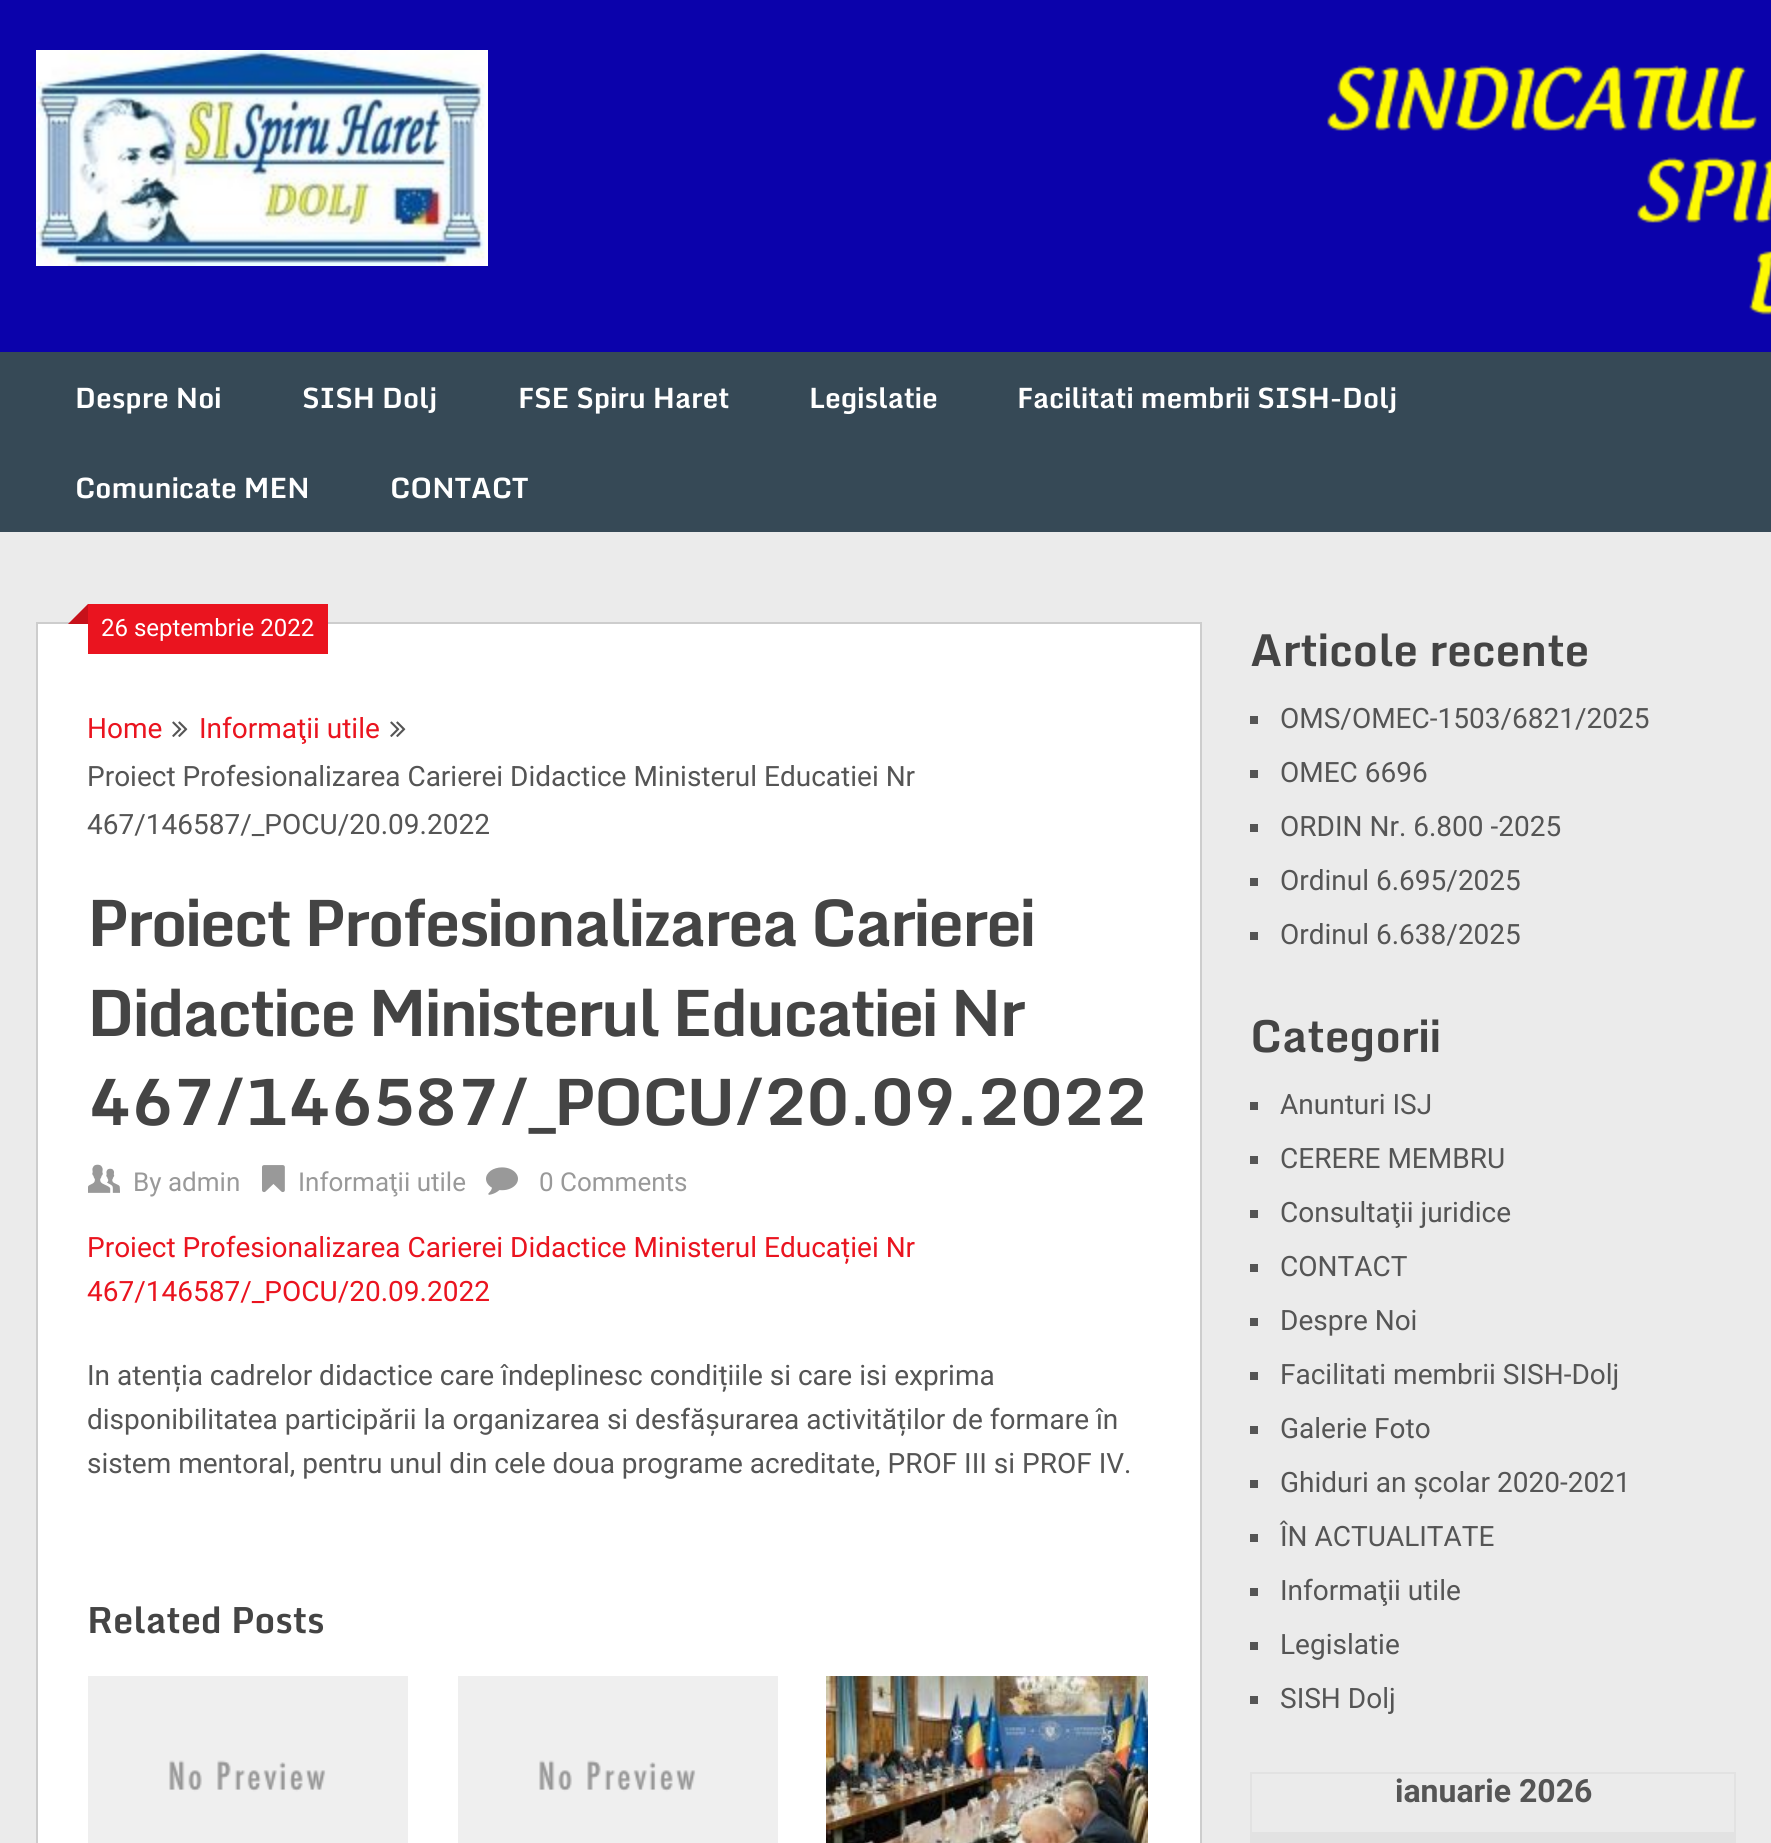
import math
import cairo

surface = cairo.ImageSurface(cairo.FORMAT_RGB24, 1771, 1843)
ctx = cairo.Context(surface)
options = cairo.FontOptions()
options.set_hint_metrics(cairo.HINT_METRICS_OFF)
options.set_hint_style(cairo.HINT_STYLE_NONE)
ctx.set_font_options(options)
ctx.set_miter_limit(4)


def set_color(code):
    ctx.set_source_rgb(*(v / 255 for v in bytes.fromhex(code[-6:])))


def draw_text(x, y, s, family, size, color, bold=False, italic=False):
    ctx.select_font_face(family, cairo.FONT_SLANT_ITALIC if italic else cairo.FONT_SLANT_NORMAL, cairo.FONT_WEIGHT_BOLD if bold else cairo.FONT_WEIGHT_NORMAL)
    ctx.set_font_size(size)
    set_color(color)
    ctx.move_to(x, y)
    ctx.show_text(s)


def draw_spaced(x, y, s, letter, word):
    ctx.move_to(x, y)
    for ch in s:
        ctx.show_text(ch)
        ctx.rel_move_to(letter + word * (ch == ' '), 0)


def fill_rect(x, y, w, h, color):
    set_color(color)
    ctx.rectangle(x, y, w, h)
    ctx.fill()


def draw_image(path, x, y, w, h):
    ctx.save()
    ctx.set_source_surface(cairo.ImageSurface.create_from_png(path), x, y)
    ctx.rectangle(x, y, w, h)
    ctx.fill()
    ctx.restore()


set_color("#ebebeb")
ctx.paint()
draw_image("assets/img1.png", 0, 0, 1771, 352)
draw_image("assets/img2.png", 36, 50, 452, 216)
fill_rect(0, 352, 1771, 180, "#364956")
draw_text(75, 408, "Despre Noi", "Monda", 28, "#ffffff", bold=True)
draw_text(302, 408, "SISH Dolj", "Monda", 28, "#ffffff", bold=True)
draw_text(518, 408, "FSE Spiru Haret", "Monda", 28, "#ffffff", bold=True)
draw_text(809, 408, "Legislatie", "Monda", 28, "#ffffff", bold=True)
draw_text(1017, 408, "Facilitati membrii SISH-Dolj", "Monda", 28, "#ffffff", bold=True)
draw_text(75, 498, "Comunicate MEN", "Monda", 28, "#ffffff", bold=True)
draw_text(390, 498, "CONTACT", "Monda", 28, "#ffffff", bold=True)
ctx.rectangle(37, 623, 1164, 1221)
ctx.fill_preserve()
set_color("#cdcdcd")
ctx.stroke()
fill_rect(88, 604, 240, 50, "#ea141f")
ctx.new_path()
ctx.move_to(88, 624)
ctx.line_to(68, 624)
ctx.line_to(88, 604)
ctx.close_path()
ctx.fill()
ctx.set_source_rgba(0, 0, 0, 0.15)
ctx.new_path()
ctx.move_to(88, 624)
ctx.line_to(68, 624)
ctx.line_to(88, 604)
ctx.close_path()
ctx.fill()
draw_text(101, 636, "26 septembrie 2022", "Roboto", 24, "#ffffff")
draw_text(87, 738, "Home", "Roboto", 28, "#ea141f")
draw_image("assets/img3.png", 172, 721, 16, 16)
draw_text(199, 738, "Informaţii utile", "Roboto", 28, "#ea141f")
draw_image("assets/img3.png", 390, 721, 16, 16)
draw_text(87, 786, "Proiect Profesionalizarea Carierei Didactice Ministerul Educatiei Nr", "Roboto", 28, "#555555")
draw_text(87, 834, "467/146587/_POCU/20.09.2022", "Roboto", 28, "#555555")
ctx.select_font_face("Monda", cairo.FONT_SLANT_NORMAL, cairo.FONT_WEIGHT_BOLD)
ctx.set_font_size(64)
set_color("#444444")
draw_spaced(87, 946, "Proiect Profesionalizarea Carierei", -2, 0)
draw_spaced(87, 1036, "Didactice Ministerul Educatiei Nr", -2, 0)
draw_spaced(87, 1125, "467/146587/_POCU/20.09.2022", -2, 0)
draw_image("assets/img4.png", 88, 1164, 32, 29)
draw_text(133, 1191, "By admin", "Roboto", 26, "#999999")
draw_image("assets/img5.png", 262, 1165, 23, 28)
draw_text(298, 1191, "Informaţii utile", "Roboto", 26, "#999999")
draw_image("assets/img6.png", 486, 1167, 32, 28)
draw_text(539, 1191, "0 Comments", "Roboto", 26, "#999999")
draw_text(87, 1257, "Proiect Profesionalizarea Carierei Didactice Ministerul Educației Nr", "Roboto", 28, "#ea141f")
draw_text(87, 1301, "467/146587/_POCU/20.09.2022", "Roboto", 28, "#ea141f")
draw_text(87, 1385, "In atenția cadrelor didactice care îndeplinesc condițiile si care isi exprima", "Roboto", 28, "#555555")
draw_text(87, 1429, "disponibilitatea participării la organizarea si desfășurarea activităților de formare în", "Roboto", 28, "#555555")
draw_text(87, 1473, "sistem mentoral, pentru unul din cele doua programe acreditate, PROF III si PROF IV.", "Roboto", 28, "#555555")
draw_text(87, 1633, "Related Posts", "Monda", 36, "#444444", bold=True)
draw_image("assets/img7.png", 88, 1676, 320, 167)
draw_image("assets/img7.png", 458, 1676, 320, 167)
draw_image("assets/img8.png", 826, 1676, 322, 167)
draw_text(1250, 666, "Articole recente", "Monda", 44, "#444444", bold=True)
fill_rect(1250, 716, 8, 8, "#555555")
draw_text(1280, 728, "OMS/OMEC-1503/6821/2025", "Roboto", 28, "#555555")
fill_rect(1250, 770, 8, 8, "#555555")
draw_text(1280, 782, "OMEC 6696", "Roboto", 28, "#555555")
fill_rect(1250, 824, 8, 8, "#555555")
draw_text(1280, 836, "ORDIN Nr. 6.800 -2025", "Roboto", 28, "#555555")
fill_rect(1250, 878, 8, 8, "#555555")
draw_text(1280, 890, "Ordinul 6.695/2025", "Roboto", 28, "#555555")
fill_rect(1250, 932, 8, 8, "#555555")
draw_text(1280, 944, "Ordinul 6.638/2025", "Roboto", 28, "#555555")
draw_text(1250, 1052, "Categorii", "Monda", 44, "#444444", bold=True)
fill_rect(1250, 1102, 8, 8, "#555555")
draw_text(1280, 1114, "Anunturi ISJ", "Roboto", 28, "#555555")
fill_rect(1250, 1156, 8, 8, "#555555")
draw_text(1280, 1168, "CERERE MEMBRU", "Roboto", 28, "#555555")
fill_rect(1250, 1210, 8, 8, "#555555")
draw_text(1280, 1222, "Consultaţii juridice", "Roboto", 28, "#555555")
fill_rect(1250, 1264, 8, 8, "#555555")
draw_text(1280, 1276, "CONTACT", "Roboto", 28, "#555555")
fill_rect(1250, 1318, 8, 8, "#555555")
draw_text(1280, 1330, "Despre Noi", "Roboto", 28, "#555555")
fill_rect(1250, 1372, 8, 8, "#555555")
draw_text(1280, 1384, "Facilitati membrii SISH-Dolj", "Roboto", 28, "#555555")
fill_rect(1250, 1426, 8, 8, "#555555")
draw_text(1280, 1438, "Galerie Foto", "Roboto", 28, "#555555")
fill_rect(1250, 1480, 8, 8, "#555555")
draw_text(1280, 1492, "Ghiduri an școlar 2020-2021", "Roboto", 28, "#555555")
fill_rect(1250, 1534, 8, 8, "#555555")
draw_text(1280, 1546, "ÎN ACTUALITATE", "Roboto", 28, "#555555")
fill_rect(1250, 1588, 8, 8, "#555555")
draw_text(1280, 1600, "Informaţii utile", "Roboto", 28, "#555555")
fill_rect(1250, 1642, 8, 8, "#555555")
draw_text(1280, 1654, "Legislatie", "Roboto", 28, "#555555")
fill_rect(1250, 1696, 8, 8, "#555555")
draw_text(1280, 1708, "SISH Dolj", "Roboto", 28, "#555555")
fill_rect(1250, 1772, 486, 2, "#e2e2e2")
fill_rect(1734, 1772, 2, 71, "#e2e2e2")
fill_rect(1250, 1772, 2, 71, "#e2e2e2")
draw_text(1395, 1802, "ianuarie 2026", "Roboto", 32, "#555555", bold=True)
fill_rect(1252, 1834, 482, 9, "#e2e2e2")
fill_rect(1250, 1832, 486, 2, "#e2e2e2")
surface.write_to_png("output.png")
